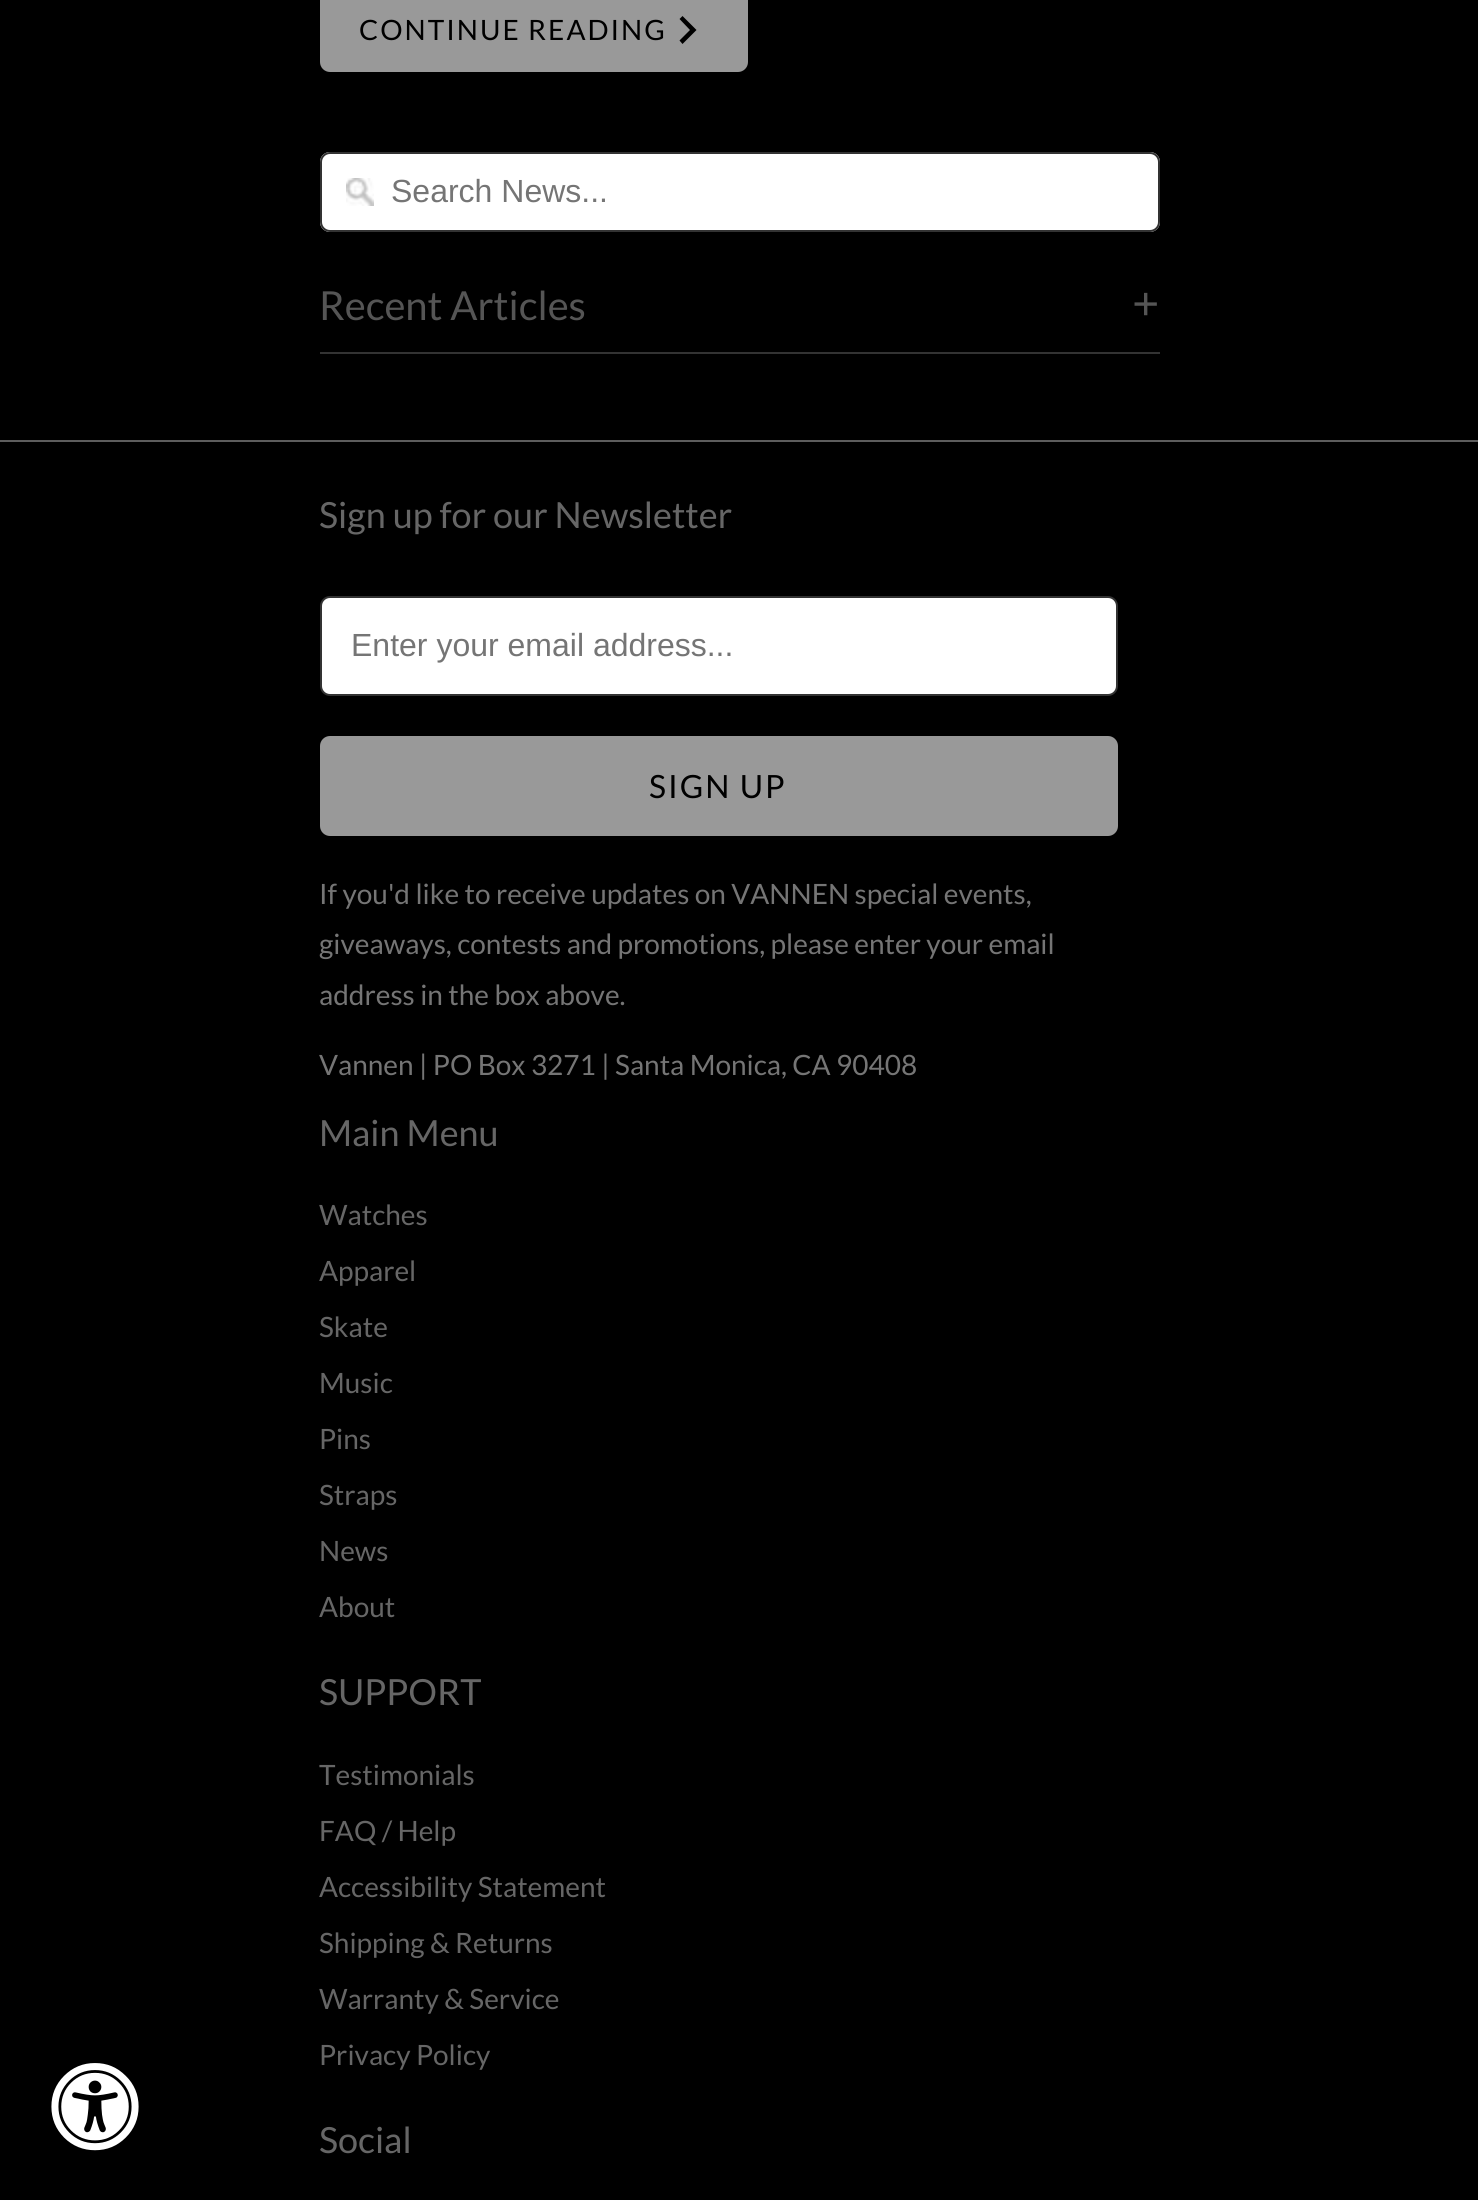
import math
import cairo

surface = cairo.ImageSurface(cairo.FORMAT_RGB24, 1478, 2200)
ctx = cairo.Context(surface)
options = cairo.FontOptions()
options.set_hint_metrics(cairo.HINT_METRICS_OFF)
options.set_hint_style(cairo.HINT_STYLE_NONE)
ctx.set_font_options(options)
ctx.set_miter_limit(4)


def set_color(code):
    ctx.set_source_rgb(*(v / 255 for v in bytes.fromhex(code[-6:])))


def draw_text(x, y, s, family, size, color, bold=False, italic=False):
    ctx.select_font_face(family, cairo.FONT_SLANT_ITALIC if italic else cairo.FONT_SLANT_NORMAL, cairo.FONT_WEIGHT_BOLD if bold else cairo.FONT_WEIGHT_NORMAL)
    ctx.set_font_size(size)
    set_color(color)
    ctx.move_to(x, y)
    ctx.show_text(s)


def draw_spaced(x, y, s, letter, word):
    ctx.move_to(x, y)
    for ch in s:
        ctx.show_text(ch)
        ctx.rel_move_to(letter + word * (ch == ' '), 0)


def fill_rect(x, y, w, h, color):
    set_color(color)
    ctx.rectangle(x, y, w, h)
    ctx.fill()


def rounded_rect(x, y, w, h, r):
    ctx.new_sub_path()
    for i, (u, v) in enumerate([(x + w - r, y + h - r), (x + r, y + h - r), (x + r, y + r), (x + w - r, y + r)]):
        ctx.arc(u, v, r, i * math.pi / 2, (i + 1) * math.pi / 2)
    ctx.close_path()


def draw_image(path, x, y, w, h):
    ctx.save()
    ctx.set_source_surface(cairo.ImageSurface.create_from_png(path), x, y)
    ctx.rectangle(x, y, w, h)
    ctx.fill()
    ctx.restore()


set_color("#000000")
ctx.paint()
set_color("#999999")
rounded_rect(320, -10, 428, 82, 10)
ctx.fill()
ctx.select_font_face("Lato")
ctx.set_font_size(28)
set_color("#000000")
draw_spaced(359, 40, "CONTINUE READING", 2, 0)
ctx.new_path()
ctx.move_to(682.5, 16)
ctx.line_to(679.5, 19)
ctx.line_to(690, 30)
ctx.line_to(679.5, 40.5)
ctx.line_to(682.5, 44)
ctx.line_to(696.5, 30)
ctx.close_path()
ctx.fill()
set_color("#ffffff")
rounded_rect(320, 152, 840, 80, 10)
ctx.fill()
draw_image("assets/img1.png", 346, 178, 28, 28)
rounded_rect(321, 153, 838, 78, 9)
set_color("#333333")
ctx.stroke()
draw_text(391, 202, "Search News...", "Liberation Sans", 32, "#757575")
fill_rect(320, 352, 840, 2, "#333333")
draw_text(319, 320, "Recent Articles", "Lato", 40, "#555555")
draw_text(1132, 320, "+", "Liberation Serif", 48, "#555555", bold=True)
draw_image("assets/img2.png", 51, 2063, 88, 88)
fill_rect(0, 440, 1478, 2, "#5d5d5d")
draw_text(319, 528, "Sign up for our Newsletter", "Lato", 36, "#666666")
set_color("#ffffff")
rounded_rect(321, 597, 796, 98, 9)
ctx.fill_preserve()
set_color("#333333")
ctx.stroke()
draw_text(351, 656, "Enter your email address...", "Liberation Sans", 32, "#757575")
set_color("#999999")
rounded_rect(320, 736, 798, 100, 10)
ctx.fill()
ctx.select_font_face("Lato")
set_color("#000000")
draw_spaced(649, 798, "SIGN UP", 2, 0)
draw_text(319, 904, "If you'd like to receive updates on VANNEN special events,", "Lato", 28, "#757575")
draw_text(319, 954, "giveaways, contests and promotions, please enter your email", "Lato", 28, "#757575")
draw_text(319, 1005, "address in the box above.", "Lato", 28, "#757575")
draw_text(319, 1075, "Vannen | PO Box 3271 | Santa Monica, CA 90408", "Lato", 28, "#757575")
draw_text(319, 1146, "Main Menu", "Lato", 36, "#666666")
draw_text(319, 1225, "Watches", "Lato", 28, "#666666")
draw_text(319, 1281, "Apparel", "Lato", 28, "#666666")
draw_text(319, 1337, "Skate", "Lato", 28, "#666666")
draw_text(319, 1393, "Music", "Lato", 28, "#666666")
draw_text(319, 1449, "Pins", "Lato", 28, "#666666")
draw_text(319, 1505, "Straps", "Lato", 28, "#666666")
draw_text(319, 1561, "News", "Lato", 28, "#666666")
draw_text(319, 1617, "About", "Lato", 28, "#666666")
draw_text(319, 1705, "SUPPORT", "Lato", 36, "#666666")
draw_text(319, 1785, "Testimonials", "Lato", 28, "#666666")
draw_text(319, 1841, "FAQ / Help", "Lato", 28, "#666666")
draw_text(319, 1897, "Accessibility Statement", "Lato", 28, "#666666")
draw_text(319, 1953, "Shipping & Returns", "Lato", 28, "#666666")
draw_text(319, 2009, "Warranty & Service", "Lato", 28, "#666666")
draw_text(319, 2065, "Privacy Policy", "Lato", 28, "#666666")
draw_text(319, 2153, "Social", "Lato", 36, "#666666")
surface.write_to_png("output.png")
